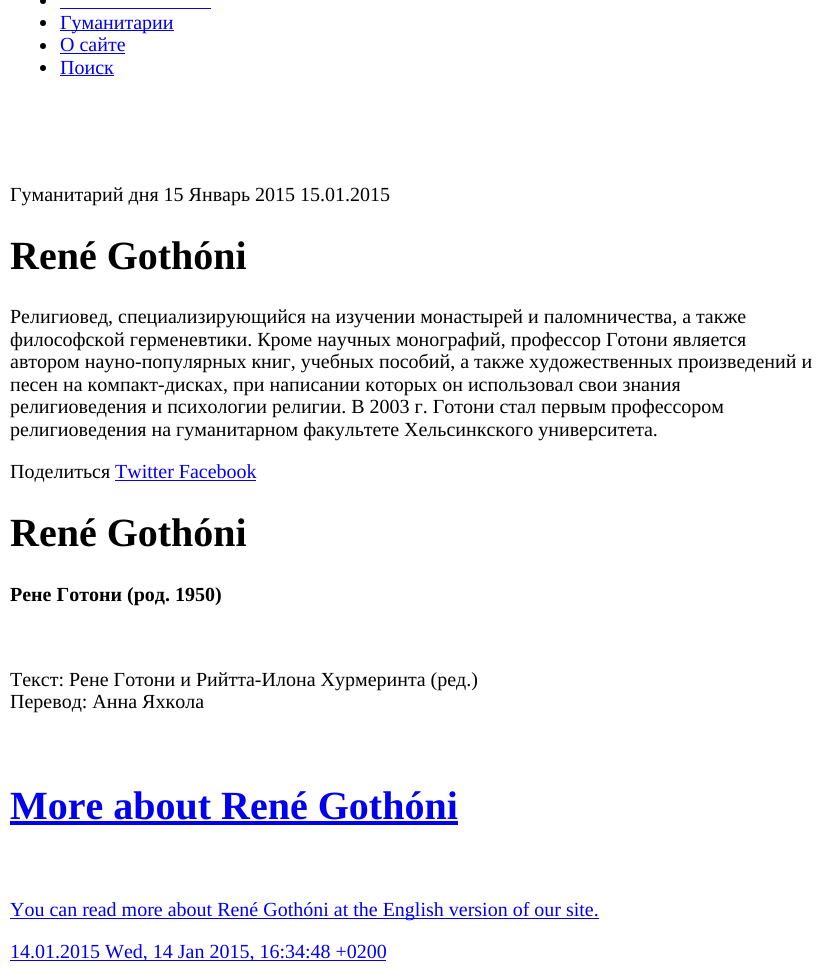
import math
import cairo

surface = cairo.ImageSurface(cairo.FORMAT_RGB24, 823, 974)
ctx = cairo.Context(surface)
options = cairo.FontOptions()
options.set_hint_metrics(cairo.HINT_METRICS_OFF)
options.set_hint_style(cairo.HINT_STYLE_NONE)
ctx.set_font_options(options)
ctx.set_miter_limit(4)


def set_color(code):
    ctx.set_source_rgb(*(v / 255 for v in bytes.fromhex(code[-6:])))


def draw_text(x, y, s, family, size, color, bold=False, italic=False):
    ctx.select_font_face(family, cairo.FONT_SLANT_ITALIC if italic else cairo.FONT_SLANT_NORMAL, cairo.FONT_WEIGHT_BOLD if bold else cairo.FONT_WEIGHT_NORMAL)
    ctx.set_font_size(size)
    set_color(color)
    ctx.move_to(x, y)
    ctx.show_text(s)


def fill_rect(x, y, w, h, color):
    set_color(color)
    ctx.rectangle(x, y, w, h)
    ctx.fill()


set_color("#ffffff")
ctx.paint()
set_color("#000000")
ctx.arc(43, 1, 3, 0, 2 * math.pi)
ctx.fill()
fill_rect(60, 8, 151, 1, "#0000ee")
set_color("#000000")
ctx.arc(43, 23, 3, 0, 2 * math.pi)
ctx.fill()
fill_rect(60, 30, 114, 1, "#0000ee")
draw_text(60, 29, "Гуманитарии", "Liberation Serif", 20, "#0000ee")
set_color("#000000")
ctx.new_path()
ctx.arc(43, 46, 3, 0, 2 * math.pi)
ctx.fill()
draw_text(60, 51, "О сайте", "Liberation Serif", 20, "#0000ee")
fill_rect(60, 53, 65, 1, "#0000ee")
set_color("#000000")
ctx.new_path()
ctx.arc(43, 68, 3, 0, 2 * math.pi)
ctx.fill()
draw_text(60, 74, "Поиск", "Liberation Serif", 20, "#0000ee")
fill_rect(60, 75, 54, 1, "#0000ee")
draw_text(10, 201, "Гуманитарий дня 15 Январь 2015 15.01.2015", "Liberation Serif", 20, "#000000")
draw_text(10, 269, "René Gothóni", "Liberation Serif", 40, "#000000", bold=True)
draw_text(10, 323, "Религиовед, специализирующийся на изучении монастырей и паломничества, а также", "Liberation Serif", 20, "#000000")
draw_text(10, 346, "философской герменевтики. Кроме научных монографий, профессор Готони является", "Liberation Serif", 20, "#000000")
draw_text(10, 368, "автором науно-популярных книг, учебных пособий, а также художественных произведений и", "Liberation Serif", 20, "#000000")
draw_text(10, 391, "песен на компакт-дисках, при написании которых он использовал свои знания", "Liberation Serif", 20, "#000000")
draw_text(10, 413, "религиоведения и психологии религии. В 2003 г. Готони стал первым профессором", "Liberation Serif", 20, "#000000")
draw_text(10, 436, "религиоведения на гуманитарном факультете Хельсинкского университета.", "Liberation Serif", 20, "#000000")
draw_text(10, 478, "Поделиться", "Liberation Serif", 20, "#000000")
draw_text(115, 478, "Twitter Facebook", "Liberation Serif", 20, "#0000ee")
fill_rect(115, 480, 141, 1, "#0000ee")
draw_text(10, 546, "René Gothóni", "Liberation Serif", 40, "#000000", bold=True)
draw_text(10, 601, "Рене Готони (род. 1950)", "Liberation Serif", 20, "#000000", bold=True)
draw_text(10, 686, "Текст: Рене Готони и Рийтта-Илона Хурмеринта (ред.)", "Liberation Serif", 20, "#000000")
draw_text(10, 708, "Перевод: Анна Яхкола", "Liberation Serif", 20, "#000000")
draw_text(10, 819, "More about René Gothóni", "Liberation Serif", 40, "#0000ee", bold=True)
fill_rect(10, 821, 448, 4, "#0000ee")
fill_rect(10, 918, 589, 1, "#0000ee")
draw_text(10, 916, "You can read more about René Gothóni at the English version of our site.", "Liberation Serif", 20, "#0000ee")
fill_rect(10, 960, 376, 1, "#0000ee")
draw_text(10, 958, "14.01.2015 Wed, 14 Jan 2015, 16:34:48 +0200", "Liberation Serif", 20, "#0000ee")
surface.write_to_png("output.png")
